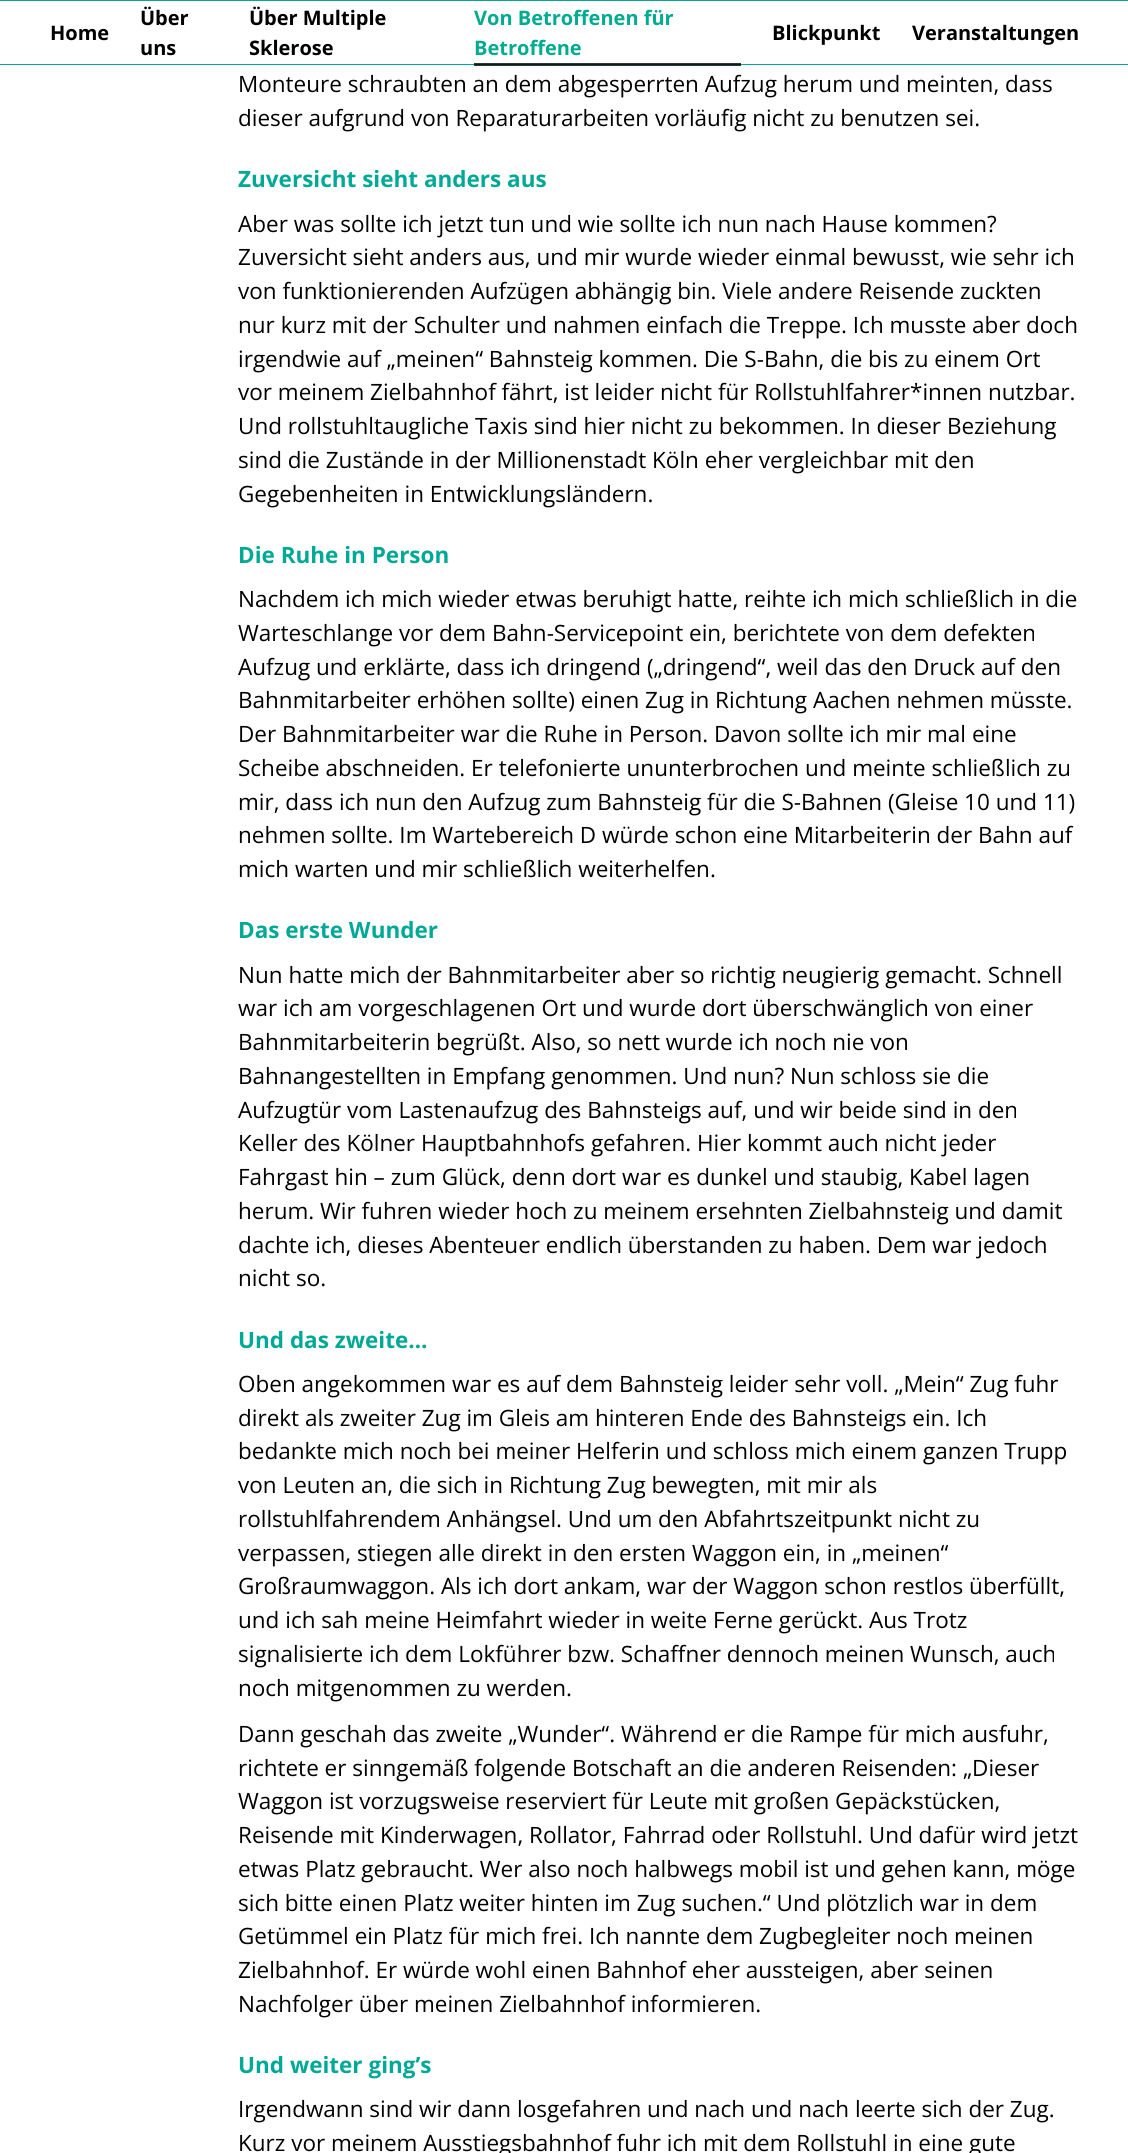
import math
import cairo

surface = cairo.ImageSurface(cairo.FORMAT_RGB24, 1128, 2153)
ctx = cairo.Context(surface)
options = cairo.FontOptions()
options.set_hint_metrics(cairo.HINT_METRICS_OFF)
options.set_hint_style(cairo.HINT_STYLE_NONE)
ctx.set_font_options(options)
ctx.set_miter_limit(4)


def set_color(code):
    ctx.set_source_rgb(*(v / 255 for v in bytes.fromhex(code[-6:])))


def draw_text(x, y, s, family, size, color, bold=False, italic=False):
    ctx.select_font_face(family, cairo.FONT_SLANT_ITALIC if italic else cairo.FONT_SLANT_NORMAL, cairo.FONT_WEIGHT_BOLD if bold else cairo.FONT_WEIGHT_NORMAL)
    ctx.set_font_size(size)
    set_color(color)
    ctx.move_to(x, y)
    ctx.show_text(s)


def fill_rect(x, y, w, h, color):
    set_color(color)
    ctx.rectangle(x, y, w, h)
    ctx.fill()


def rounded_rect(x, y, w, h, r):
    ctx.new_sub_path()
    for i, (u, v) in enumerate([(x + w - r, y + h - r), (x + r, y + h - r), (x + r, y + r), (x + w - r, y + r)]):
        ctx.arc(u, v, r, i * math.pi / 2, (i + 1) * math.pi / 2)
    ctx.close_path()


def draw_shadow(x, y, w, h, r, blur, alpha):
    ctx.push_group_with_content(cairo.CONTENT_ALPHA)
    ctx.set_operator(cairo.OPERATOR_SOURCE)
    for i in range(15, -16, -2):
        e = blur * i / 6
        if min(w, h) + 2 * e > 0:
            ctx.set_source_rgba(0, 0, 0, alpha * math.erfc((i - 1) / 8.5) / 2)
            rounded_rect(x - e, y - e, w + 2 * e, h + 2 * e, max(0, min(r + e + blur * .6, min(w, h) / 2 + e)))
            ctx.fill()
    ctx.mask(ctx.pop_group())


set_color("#ffffff")
ctx.paint()
set_color("#000000")
draw_shadow(0, 3, 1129, 65, 0, 5, 0.04)
fill_rect(0, 1, 1128, 63, "#ffffff")
fill_rect(0, 0, 1128, 1, "#00a995")
fill_rect(0, 64, 1128, 1, "#00a995")
draw_text(50, 40, "Home", "Open Sans", 20, "#000000", bold=True)
draw_text(140, 25, "Über", "Open Sans", 20, "#000000", bold=True)
draw_text(140, 55, "uns", "Open Sans", 20, "#000000", bold=True)
draw_text(249, 25, "Über Multiple", "Open Sans", 20, "#000000", bold=True)
draw_text(249, 55, "Sklerose", "Open Sans", 20, "#000000", bold=True)
draw_text(474, 25, "Von Betroffenen für", "Open Sans", 20, "#00ab8f", bold=True)
draw_text(474, 55, "Betroffene", "Open Sans", 20, "#00ab8f", bold=True)
ctx.set_source_rgba(0, 0, 0, 0.8)
ctx.rectangle(474, 63, 267, 3)
ctx.fill()
draw_text(772, 40, "Blickpunkt", "Open Sans", 20, "#000000", bold=True)
draw_text(912, 40, "Veranstaltungen", "Open Sans", 20, "#000000", bold=True)
draw_text(238, 92, "Monteure schraubten an dem abgesperrten Aufzug herum und meinten, dass", "Open Sans", 22.5, "#000000")
draw_text(238, 126, "dieser aufgrund von Reparaturarbeiten vorläufig nicht zu benutzen sei.", "Open Sans", 22.5, "#000000")
draw_text(238, 187, "Zuversicht sieht anders aus", "Open Sans", 22.5, "#00a995", bold=True)
draw_text(238, 232, "Aber was sollte ich jetzt tun und wie sollte ich nun nach Hause kommen?", "Open Sans", 22.5, "#000000")
draw_text(238, 265, "Zuversicht sieht anders aus, und mir wurde wieder einmal bewusst, wie sehr ich", "Open Sans", 22.5, "#000000")
draw_text(238, 299, "von funktionierenden Aufzügen abhängig bin. Viele andere Reisende zuckten", "Open Sans", 22.5, "#000000")
draw_text(238, 333, "nur kurz mit der Schulter und nahmen einfach die Treppe. Ich musste aber doch", "Open Sans", 22.5, "#000000")
draw_text(238, 367, "irgendwie auf „meinen“ Bahnsteig kommen. Die S-Bahn, die bis zu einem Ort", "Open Sans", 22.5, "#000000")
draw_text(238, 400, "vor meinem Zielbahnhof fährt, ist leider nicht für Rollstuhlfahrer*innen nutzbar.", "Open Sans", 22.5, "#000000")
draw_text(238, 434, "Und rollstuhltaugliche Taxis sind hier nicht zu bekommen. In dieser Beziehung", "Open Sans", 22.5, "#000000")
draw_text(238, 468, "sind die Zustände in der Millionenstadt Köln eher vergleichbar mit den", "Open Sans", 22.5, "#000000")
draw_text(238, 502, "Gegebenheiten in Entwicklungsländern.", "Open Sans", 22.5, "#000000")
draw_text(238, 563, "Die Ruhe in Person", "Open Sans", 22.5, "#00a995", bold=True)
draw_text(238, 607, "Nachdem ich mich wieder etwas beruhigt hatte, reihte ich mich schließlich in die", "Open Sans", 22.5, "#000000")
draw_text(238, 641, "Warteschlange vor dem Bahn-Servicepoint ein, berichtete von dem defekten", "Open Sans", 22.5, "#000000")
draw_text(238, 675, "Aufzug und erklärte, dass ich dringend („dringend“, weil das den Druck auf den", "Open Sans", 22.5, "#000000")
draw_text(238, 708, "Bahnmitarbeiter erhöhen sollte) einen Zug in Richtung Aachen nehmen müsste.", "Open Sans", 22.5, "#000000")
draw_text(238, 742, "Der Bahnmitarbeiter war die Ruhe in Person. Davon sollte ich mir mal eine", "Open Sans", 22.5, "#000000")
draw_text(238, 776, "Scheibe abschneiden. Er telefonierte ununterbrochen und meinte schließlich zu", "Open Sans", 22.5, "#000000")
draw_text(238, 810, "mir, dass ich nun den Aufzug zum Bahnsteig für die S-Bahnen (Gleise 10 und 11)", "Open Sans", 22.5, "#000000")
draw_text(238, 843, "nehmen sollte. Im Wartebereich D würde schon eine Mitarbeiterin der Bahn auf", "Open Sans", 22.5, "#000000")
draw_text(238, 877, "mich warten und mir schließlich weiterhelfen.", "Open Sans", 22.5, "#000000")
draw_text(238, 938, "Das erste Wunder", "Open Sans", 22.5, "#00a995", bold=True)
draw_text(238, 983, "Nun hatte mich der Bahnmitarbeiter aber so richtig neugierig gemacht. Schnell", "Open Sans", 22.5, "#000000")
draw_text(238, 1016, "war ich am vorgeschlagenen Ort und wurde dort überschwänglich von einer", "Open Sans", 22.5, "#000000")
draw_text(238, 1050, "Bahnmitarbeiterin begrüßt. Also, so nett wurde ich noch nie von", "Open Sans", 22.5, "#000000")
draw_text(238, 1084, "Bahnangestellten in Empfang genommen. Und nun? Nun schloss sie die", "Open Sans", 22.5, "#000000")
draw_text(238, 1118, "Aufzugtür vom Lastenaufzug des Bahnsteigs auf, und wir beide sind in den", "Open Sans", 22.5, "#000000")
draw_text(238, 1151, "Keller des Kölner Hauptbahnhofs gefahren. Hier kommt auch nicht jeder", "Open Sans", 22.5, "#000000")
draw_text(238, 1185, "Fahrgast hin – zum Glück, denn dort war es dunkel und staubig, Kabel lagen", "Open Sans", 22.5, "#000000")
draw_text(238, 1219, "herum. Wir fuhren wieder hoch zu meinem ersehnten Zielbahnsteig und damit", "Open Sans", 22.5, "#000000")
draw_text(238, 1253, "dachte ich, dieses Abenteuer endlich überstanden zu haben. Dem war jedoch", "Open Sans", 22.5, "#000000")
draw_text(238, 1286, "nicht so.", "Open Sans", 22.5, "#000000")
draw_text(238, 1348, "Und das zweite…", "Open Sans", 22.5, "#00a995", bold=True)
draw_text(238, 1392, "Oben angekommen war es auf dem Bahnsteig leider sehr voll. „Mein“ Zug fuhr", "Open Sans", 22.5, "#000000")
draw_text(238, 1426, "direkt als zweiter Zug im Gleis am hinteren Ende des Bahnsteigs ein. Ich", "Open Sans", 22.5, "#000000")
draw_text(238, 1459, "bedankte mich noch bei meiner Helferin und schloss mich einem ganzen Trupp", "Open Sans", 22.5, "#000000")
draw_text(238, 1493, "von Leuten an, die sich in Richtung Zug bewegten, mit mir als", "Open Sans", 22.5, "#000000")
draw_text(238, 1527, "rollstuhlfahrendem Anhängsel. Und um den Abfahrtszeitpunkt nicht zu", "Open Sans", 22.5, "#000000")
draw_text(238, 1561, "verpassen, stiegen alle direkt in den ersten Waggon ein, in „meinen“", "Open Sans", 22.5, "#000000")
draw_text(238, 1594, "Großraumwaggon. Als ich dort ankam, war der Waggon schon restlos überfüllt,", "Open Sans", 22.5, "#000000")
draw_text(238, 1628, "und ich sah meine Heimfahrt wieder in weite Ferne gerückt. Aus Trotz", "Open Sans", 22.5, "#000000")
draw_text(238, 1662, "signalisierte ich dem Lokführer bzw. Schaffner dennoch meinen Wunsch, auch", "Open Sans", 22.5, "#000000")
draw_text(238, 1696, "noch mitgenommen zu werden.", "Open Sans", 22.5, "#000000")
draw_text(238, 1742, "Dann geschah das zweite „Wunder“. Während er die Rampe für mich ausfuhr,", "Open Sans", 22.5, "#000000")
draw_text(238, 1776, "richtete er sinngemäß folgende Botschaft an die anderen Reisenden: „Dieser", "Open Sans", 22.5, "#000000")
draw_text(238, 1809, "Waggon ist vorzugsweise reserviert für Leute mit großen Gepäckstücken,", "Open Sans", 22.5, "#000000")
draw_text(238, 1843, "Reisende mit Kinderwagen, Rollator, Fahrrad oder Rollstuhl. Und dafür wird jetzt", "Open Sans", 22.5, "#000000")
draw_text(238, 1877, "etwas Platz gebraucht. Wer also noch halbwegs mobil ist und gehen kann, möge", "Open Sans", 22.5, "#000000")
draw_text(238, 1911, "sich bitte einen Platz weiter hinten im Zug suchen.“ Und plötzlich war in dem", "Open Sans", 22.5, "#000000")
draw_text(238, 1944, "Getümmel ein Platz für mich frei. Ich nannte dem Zugbegleiter noch meinen", "Open Sans", 22.5, "#000000")
draw_text(238, 1978, "Zielbahnhof. Er würde wohl einen Bahnhof eher aussteigen, aber seinen", "Open Sans", 22.5, "#000000")
draw_text(238, 2012, "Nachfolger über meinen Zielbahnhof informieren.", "Open Sans", 22.5, "#000000")
draw_text(238, 2073, "Und weiter ging’s", "Open Sans", 22.5, "#00a995", bold=True)
draw_text(238, 2117, "Irgendwann sind wir dann losgefahren und nach und nach leerte sich der Zug.", "Open Sans", 22.5, "#000000")
draw_text(238, 2151, "Kurz vor meinem Ausstiegsbahnhof fuhr ich mit dem Rollstuhl in eine gute", "Open Sans", 22.5, "#000000")
surface.write_to_png("output.png")
